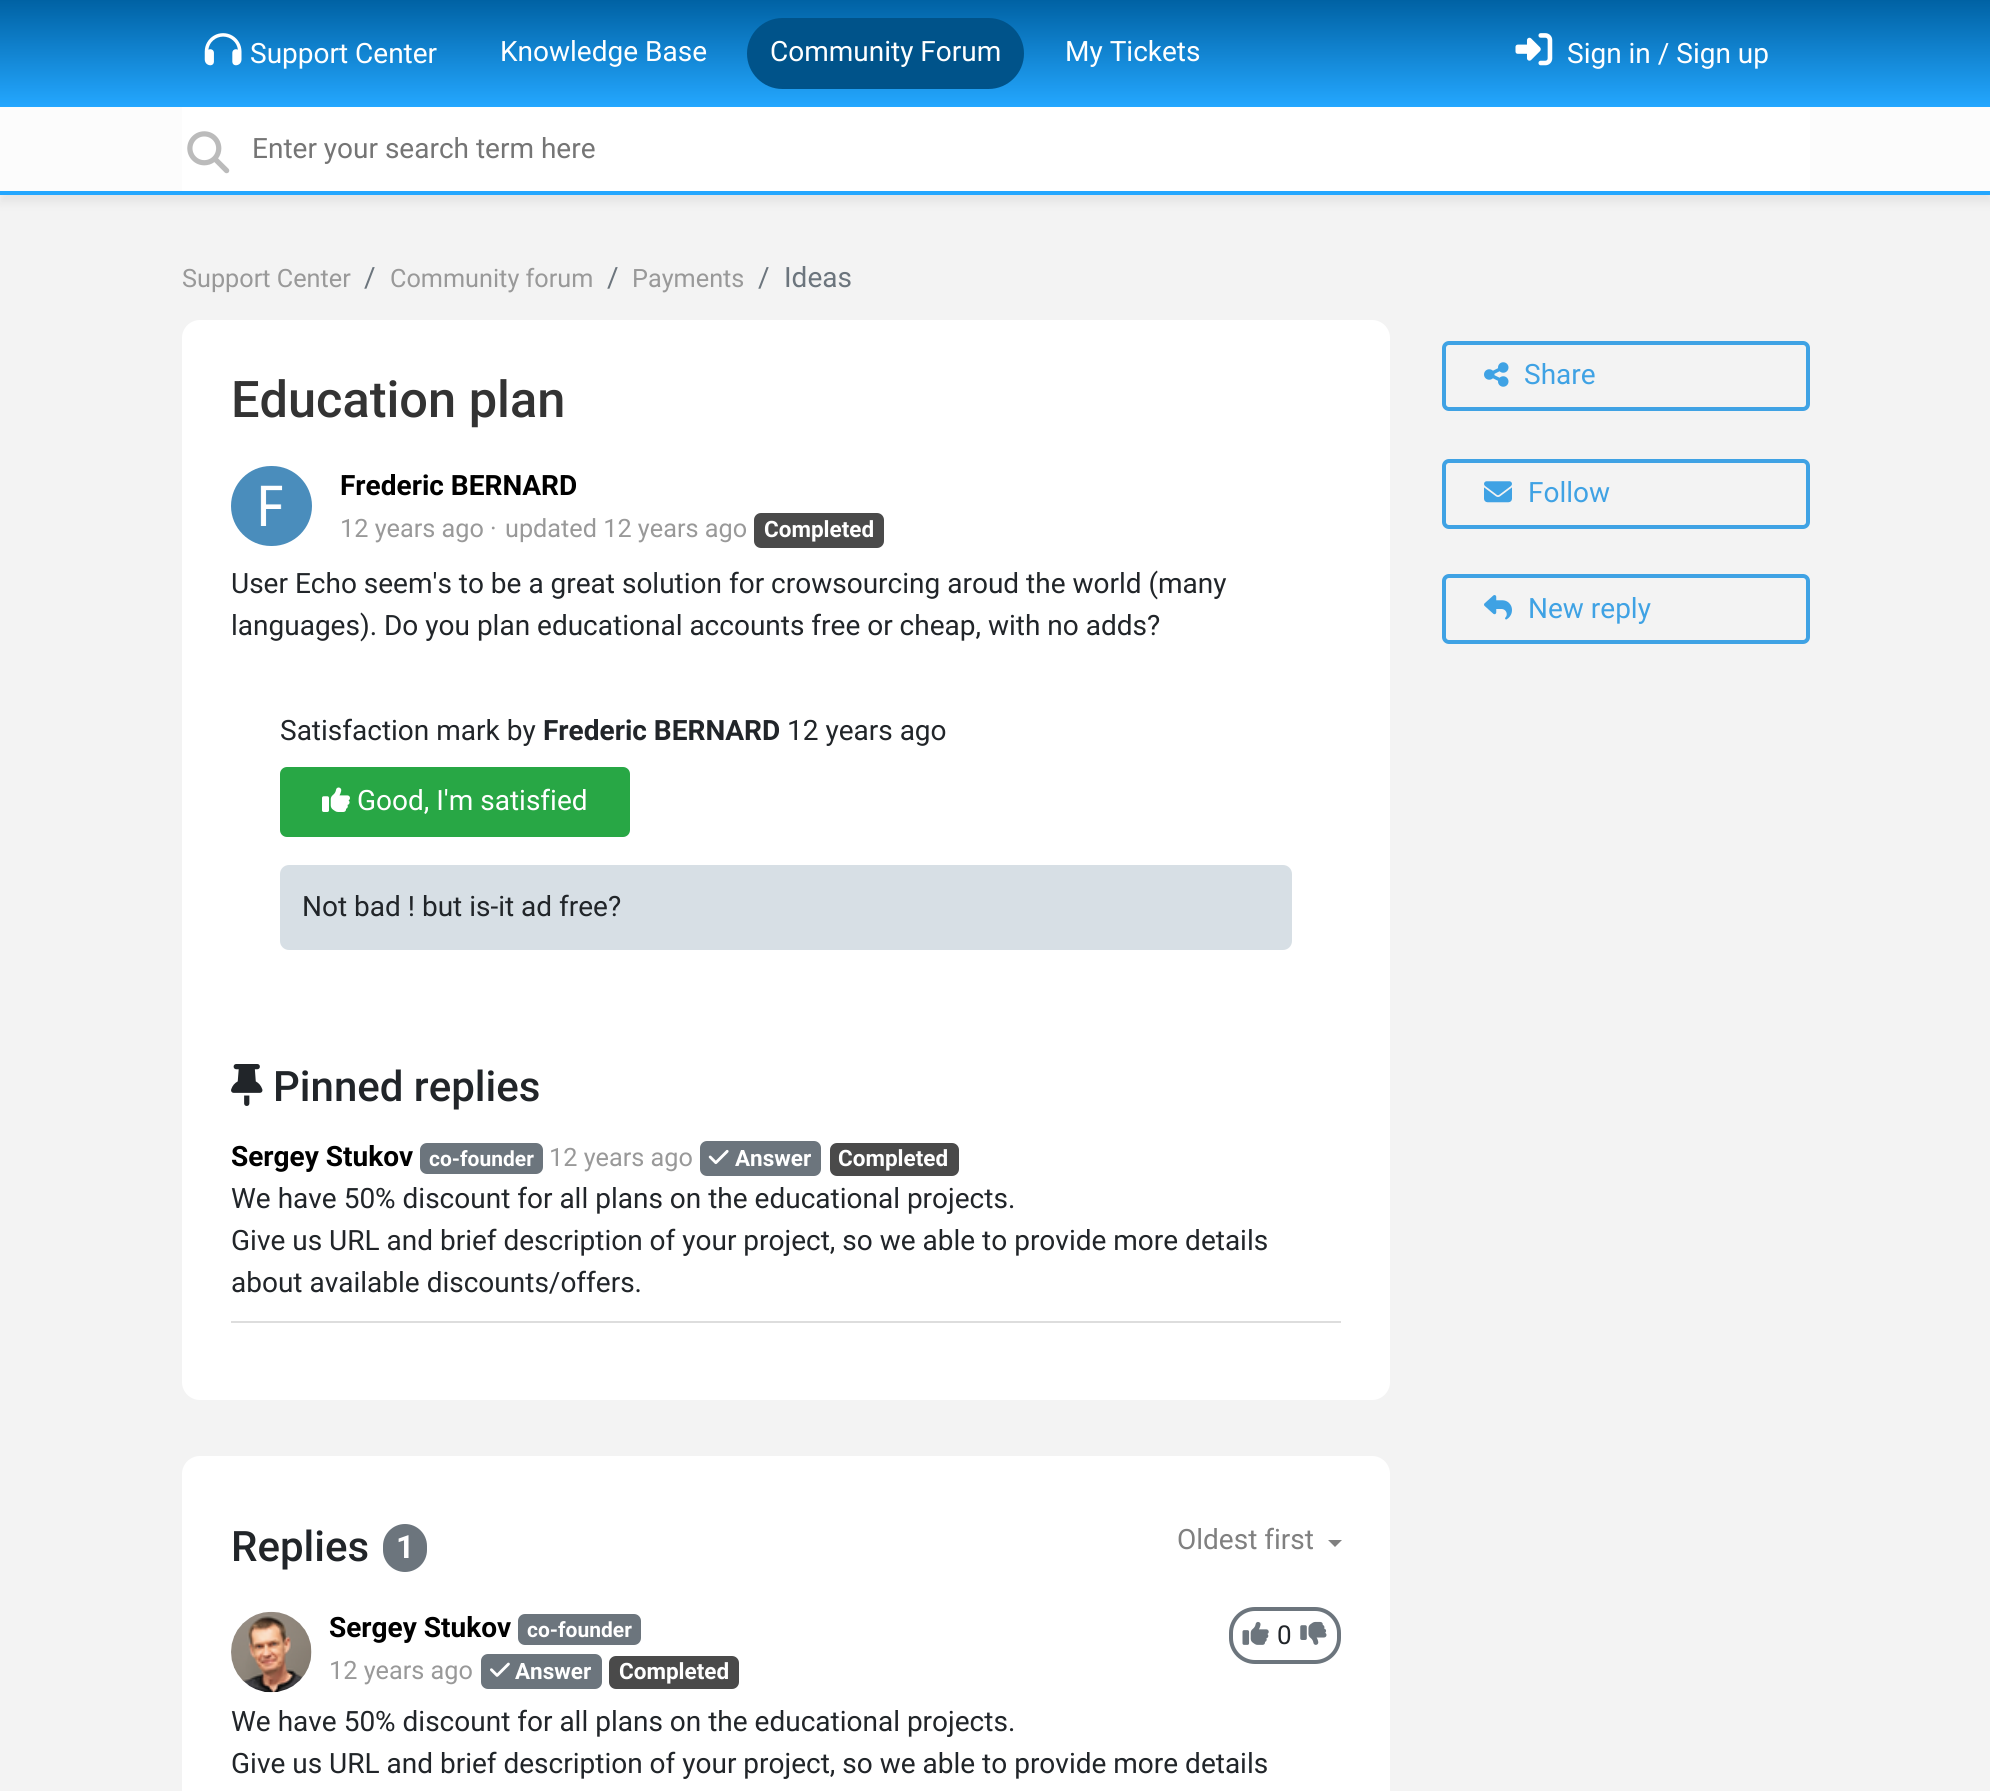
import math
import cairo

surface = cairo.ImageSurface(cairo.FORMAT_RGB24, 1990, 1791)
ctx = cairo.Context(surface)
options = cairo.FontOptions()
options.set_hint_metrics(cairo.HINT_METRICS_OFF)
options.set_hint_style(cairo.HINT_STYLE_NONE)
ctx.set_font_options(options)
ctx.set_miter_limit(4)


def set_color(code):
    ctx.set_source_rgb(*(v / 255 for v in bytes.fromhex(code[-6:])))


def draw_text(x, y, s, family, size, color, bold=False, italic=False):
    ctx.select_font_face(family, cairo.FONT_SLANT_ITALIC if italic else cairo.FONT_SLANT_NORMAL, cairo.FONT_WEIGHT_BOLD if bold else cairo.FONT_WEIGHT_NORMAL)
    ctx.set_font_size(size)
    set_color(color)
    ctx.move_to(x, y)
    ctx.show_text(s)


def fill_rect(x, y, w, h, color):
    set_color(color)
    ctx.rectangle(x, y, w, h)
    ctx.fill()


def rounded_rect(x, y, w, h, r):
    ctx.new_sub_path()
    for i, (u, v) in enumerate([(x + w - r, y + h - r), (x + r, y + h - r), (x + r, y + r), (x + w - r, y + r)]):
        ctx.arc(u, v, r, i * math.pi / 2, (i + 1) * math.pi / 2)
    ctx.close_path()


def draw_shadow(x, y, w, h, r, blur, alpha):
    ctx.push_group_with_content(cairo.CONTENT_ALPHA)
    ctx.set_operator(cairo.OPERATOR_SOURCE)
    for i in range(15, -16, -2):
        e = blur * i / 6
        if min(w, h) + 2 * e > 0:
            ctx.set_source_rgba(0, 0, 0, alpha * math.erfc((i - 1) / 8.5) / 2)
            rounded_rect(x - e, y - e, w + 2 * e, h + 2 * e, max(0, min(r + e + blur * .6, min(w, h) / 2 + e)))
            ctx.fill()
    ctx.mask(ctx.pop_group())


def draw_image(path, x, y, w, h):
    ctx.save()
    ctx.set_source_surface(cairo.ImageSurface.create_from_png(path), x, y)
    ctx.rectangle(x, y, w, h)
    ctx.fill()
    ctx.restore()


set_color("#f3f3f3")
ctx.paint()
gradient = cairo.LinearGradient(996, 0, 996, 107)
gradient.add_color_stop_rgba(0, 0, 0.384, 0.643, 1)
gradient.add_color_stop_rgba(1, 0.141, 0.655, 1, 1)
ctx.set_source(gradient)
ctx.rectangle(0, 0, 1990, 107)
ctx.fill()
draw_image("assets/img1.png", 204, 33, 38, 33)
draw_text(250, 63, "Support Center", "Roboto", 28, "#ffffff")
draw_text(500, 61, "Knowledge Base", "Roboto", 28, "#ffffff")
set_color("#00538a")
rounded_rect(747, 18, 277, 71, 35.5)
ctx.fill()
draw_text(770, 61, "Community Forum", "Roboto", 28, "#ffffff")
draw_text(1065, 61, "My Tickets", "Roboto", 28, "#ffffff")
draw_image("assets/img2.png", 1515, 33, 38, 33)
draw_text(1567, 63, "Sign in / Sign up", "Roboto", 28, "#ffffff")
set_color("#646464")
draw_shadow(0, 116, 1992, 87, 0, 4.5, 0.1)
fill_rect(0, 107, 1990, 84, "#fcfcfc")
fill_rect(0, 191, 1990, 4, "#24a7ff")
fill_rect(182, 107, 1628, 84, "#ffffff")
draw_image("assets/img3.png", 187, 131, 43, 43)
draw_text(252, 158, "Enter your search term here", "Roboto", 28, "#757575")
draw_text(182, 287, "Support Center", "Roboto", 25.25, "#999999")
draw_text(364, 287, "/", "Roboto", 28, "#6c757d")
draw_text(390, 287, "Community forum", "Roboto", 25.25, "#999999")
draw_text(607, 287, "/", "Roboto", 28, "#6c757d")
draw_text(632, 287, "Payments", "Roboto", 25.25, "#999999")
draw_text(758, 287, "/", "Roboto", 28, "#6c757d")
draw_text(784, 287, "Ideas", "Roboto", 28, "#6c757d")
set_color("#ffffff")
rounded_rect(182, 320, 1208, 1080, 18)
ctx.fill()
draw_text(231, 417, "Education plan", "Roboto Medium", 50.5, "#333333")
set_color("#4a8dbc")
rounded_rect(231, 466, 81, 80, 40)
ctx.fill()
draw_image("assets/img4.png", 260, 485, 23, 41)
draw_text(340, 495, "Frederic BERNARD", "Roboto", 28, "#000000", bold=True)
draw_text(340, 537, "12 years ago", "Roboto", 25.25, "#999999")
draw_text(490, 537, "·", "Roboto", 25.25, "#999999")
draw_text(505, 537, "updated 12 years ago", "Roboto", 25.25, "#999999")
set_color("#4a4a4a")
rounded_rect(754, 513, 130, 35, 7)
ctx.fill()
draw_text(764, 537, "Completed", "Roboto", 22.5, "#ffffff", bold=True)
draw_text(231, 593, "User Echo seem's to be a great solution for crowsourcing aroud the world (many", "Roboto", 28, "#212529")
draw_text(231, 635, "languages). Do you plan educational accounts free or cheap, with no adds?", "Roboto", 28, "#212529")
draw_text(280, 740, "Satisfaction mark by", "Roboto", 28, "#212529")
draw_text(543, 740, "Frederic BERNARD", "Roboto", 28, "#212529", bold=True)
draw_text(787, 740, "12 years ago", "Roboto", 28, "#212529")
set_color("#28a745")
rounded_rect(282, 769, 346, 66, 5)
ctx.fill_preserve()
ctx.set_line_width(4)
ctx.stroke()
draw_image("assets/img5.png", 322, 787, 28, 25)
draw_text(357, 810, "Good, I'm satisfied", "Roboto", 28, "#ffffff")
set_color("#d7dfe5")
rounded_rect(280, 865, 1012, 85, 9)
ctx.fill()
draw_text(302, 916, "Not bad ! but is-it ad free?", "Roboto", 28, "#212529")
draw_image("assets/img6.png", 231, 1064, 32, 42)
draw_text(273, 1101, "Pinned replies", "Roboto Medium", 42, "#212529")
fill_rect(231, 1321, 1110, 2, "#dddddd")
draw_text(231, 1166, "Sergey Stukov", "Roboto", 28, "#000000", bold=True)
set_color("#6c757d")
rounded_rect(420, 1143, 123, 31, 7)
ctx.fill()
draw_text(429, 1166, "co-founder", "Roboto", 21, "#ffffff", bold=True)
draw_text(549, 1166, "12 years ago", "Roboto", 25.25, "#999999")
set_color("#6c757d")
rounded_rect(700, 1141, 121, 35, 7)
ctx.fill()
draw_image("assets/img7.png", 708, 1149, 21, 16)
draw_text(735, 1166, "Answer", "Roboto", 22.5, "#ffffff", bold=True)
set_color("#4a4a4a")
rounded_rect(830, 1143, 129, 33, 7)
ctx.fill()
draw_text(838, 1166, "Completed", "Roboto", 22.5, "#ffffff", bold=True)
draw_text(231, 1208, "We have 50% discount for all plans on the educational projects.", "Roboto", 28, "#212529")
draw_text(231, 1250, "Give us URL and brief description of your project, so we able to provide more details", "Roboto", 28, "#212529")
draw_text(231, 1292, "about available discounts/offers.", "Roboto", 28, "#212529")
rounded_rect(1444, 343, 364, 66, 5)
set_color("#3fa2e4")
ctx.stroke()
draw_image("assets/img8.png", 1484, 362, 25, 25)
draw_text(1524, 384, "Share", "Roboto", 28, "#3fa2e4")
rounded_rect(1444, 461, 364, 66, 5)
ctx.stroke()
draw_image("assets/img9.png", 1484, 481, 28, 22)
draw_text(1528, 502, "Follow", "Roboto", 28, "#3fa2e4")
rounded_rect(1444, 576, 364, 66, 5)
ctx.stroke()
draw_image("assets/img10.png", 1484, 595, 28, 25)
draw_text(1528, 618, "New reply", "Roboto", 28, "#3fa2e4")
set_color("#ffffff")
rounded_rect(182, 1456, 1208, 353, 18)
ctx.fill()
draw_text(231, 1561, "Replies", "Roboto Medium", 42, "#212529")
set_color("#6c757d")
rounded_rect(383, 1524, 44, 48, 22)
ctx.fill()
draw_text(396, 1558, "1", "Roboto", 32, "#ffffff", bold=True)
draw_text(1177, 1549, "Oldest first", "Roboto", 28, "#808080")
ctx.new_path()
ctx.move_to(1328, 1540)
ctx.line_to(1342, 1540)
ctx.line_to(1335, 1547)
ctx.close_path()
ctx.fill()
draw_image("assets/img11.png", 231, 1611, 81, 82)
draw_text(329, 1637, "Sergey Stukov", "Roboto", 28, "#000000", bold=True)
set_color("#6c757d")
rounded_rect(518, 1614, 123, 31, 7)
ctx.fill()
draw_text(527, 1637, "co-founder", "Roboto", 21, "#ffffff", bold=True)
draw_text(329, 1679, "12 years ago", "Roboto", 25.25, "#999999")
set_color("#6c757d")
rounded_rect(481, 1654, 121, 35, 7)
ctx.fill()
draw_image("assets/img12.png", 490, 1662, 20, 15)
draw_text(515, 1679, "Answer", "Roboto", 22.5, "#ffffff", bold=True)
set_color("#4a4a4a")
rounded_rect(609, 1656, 130, 33, 7)
ctx.fill()
draw_text(619, 1679, "Completed", "Roboto", 22.5, "#ffffff", bold=True)
rounded_rect(1231, 1609, 108, 53, 24)
set_color("#6c757d")
ctx.stroke()
draw_image("assets/img13.png", 1242, 1621, 27, 24)
draw_text(1277, 1644, "0", "Roboto", 26, "#212529")
draw_image("assets/img14.png", 1300, 1621, 27, 24)
draw_text(231, 1731, "We have 50% discount for all plans on the educational projects.", "Roboto", 28, "#212529")
draw_text(231, 1773, "Give us URL and brief description of your project, so we able to provide more details", "Roboto", 28, "#212529")
surface.write_to_png("output.png")
